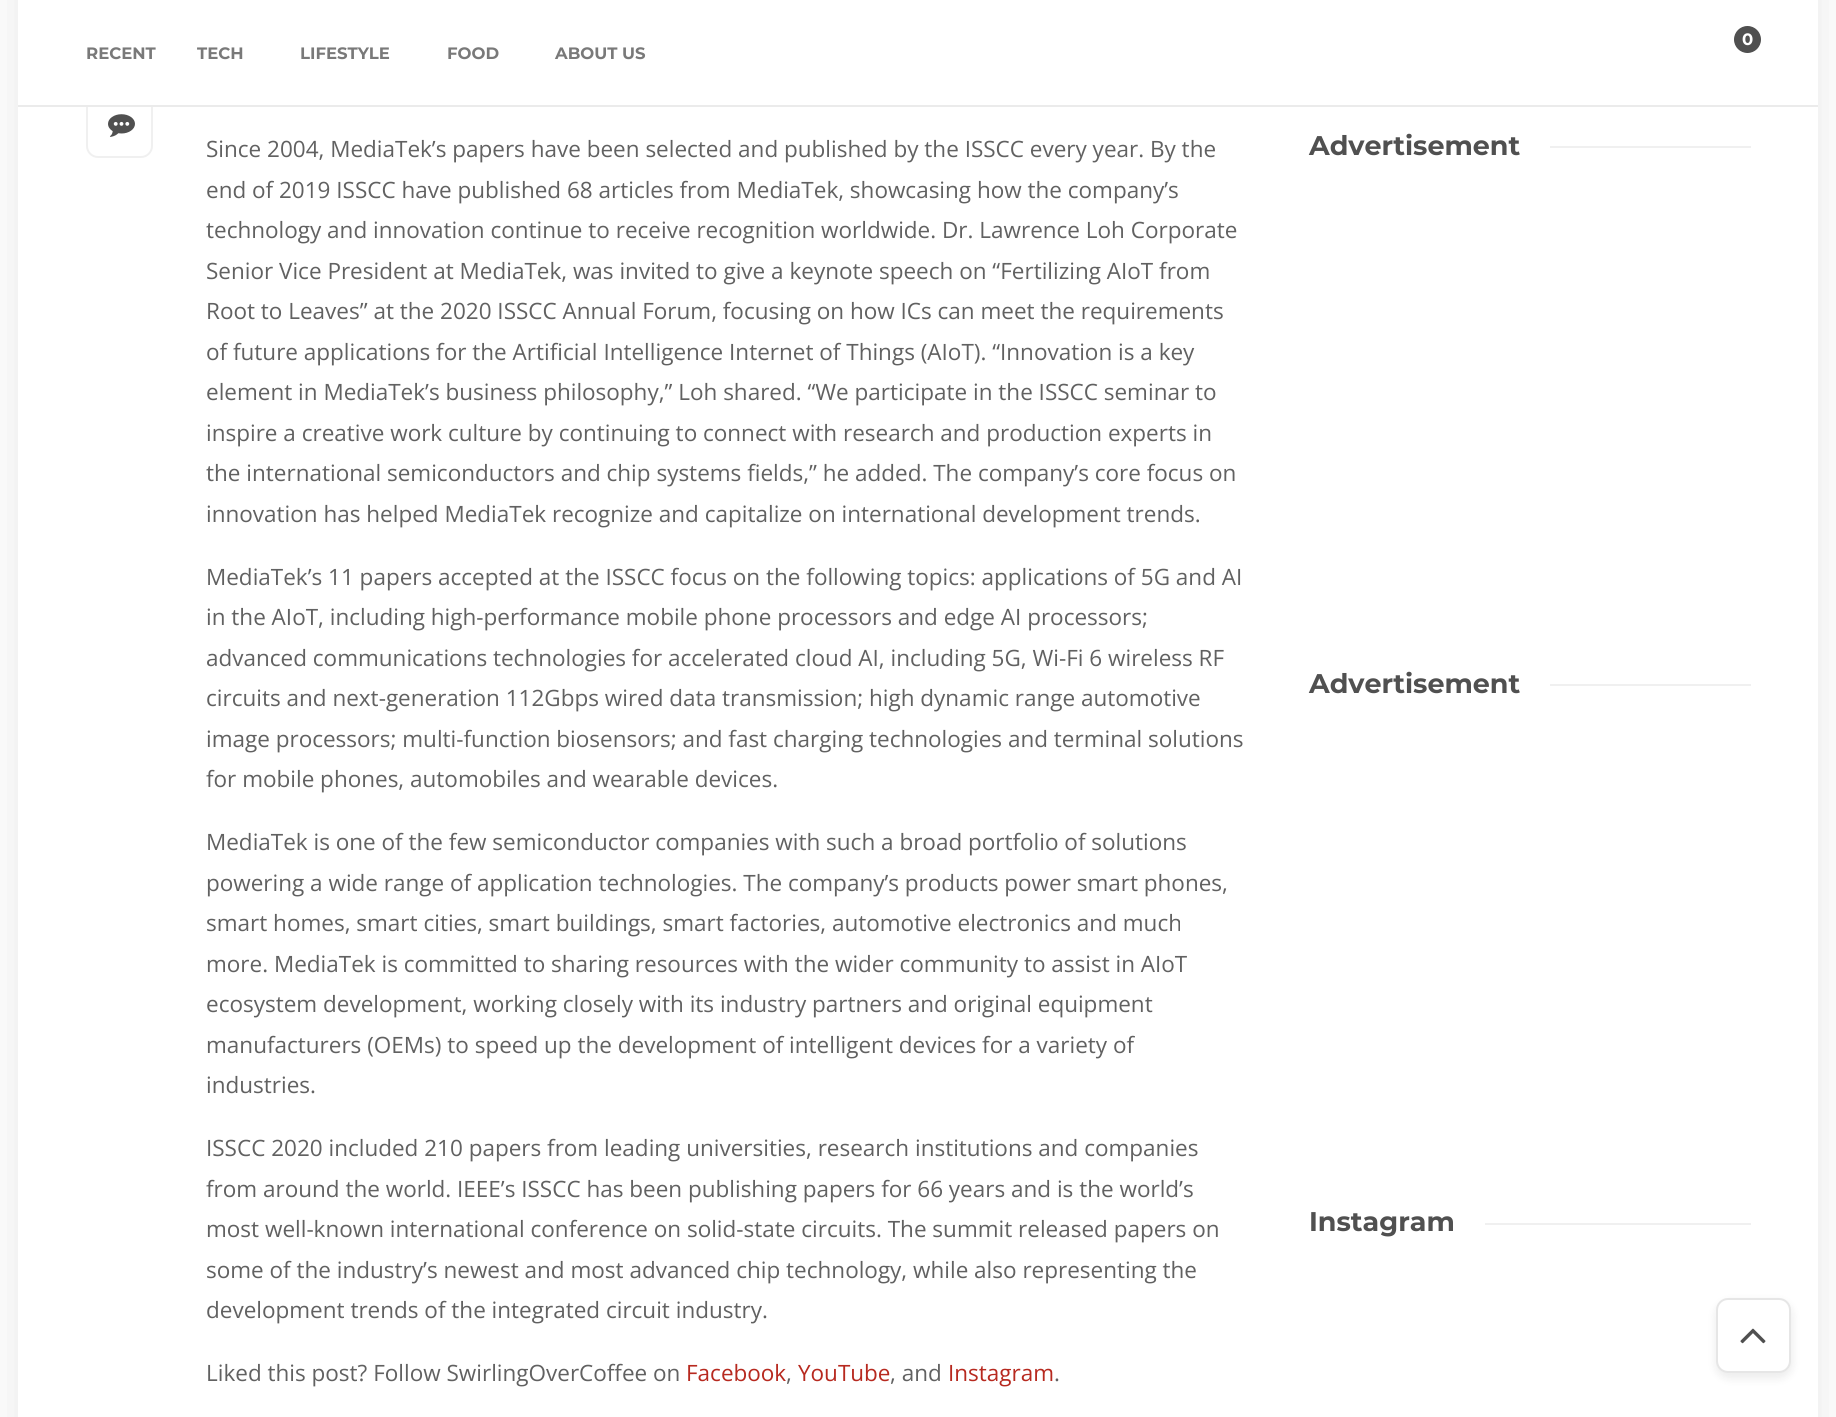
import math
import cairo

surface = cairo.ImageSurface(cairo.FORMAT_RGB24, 1836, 1417)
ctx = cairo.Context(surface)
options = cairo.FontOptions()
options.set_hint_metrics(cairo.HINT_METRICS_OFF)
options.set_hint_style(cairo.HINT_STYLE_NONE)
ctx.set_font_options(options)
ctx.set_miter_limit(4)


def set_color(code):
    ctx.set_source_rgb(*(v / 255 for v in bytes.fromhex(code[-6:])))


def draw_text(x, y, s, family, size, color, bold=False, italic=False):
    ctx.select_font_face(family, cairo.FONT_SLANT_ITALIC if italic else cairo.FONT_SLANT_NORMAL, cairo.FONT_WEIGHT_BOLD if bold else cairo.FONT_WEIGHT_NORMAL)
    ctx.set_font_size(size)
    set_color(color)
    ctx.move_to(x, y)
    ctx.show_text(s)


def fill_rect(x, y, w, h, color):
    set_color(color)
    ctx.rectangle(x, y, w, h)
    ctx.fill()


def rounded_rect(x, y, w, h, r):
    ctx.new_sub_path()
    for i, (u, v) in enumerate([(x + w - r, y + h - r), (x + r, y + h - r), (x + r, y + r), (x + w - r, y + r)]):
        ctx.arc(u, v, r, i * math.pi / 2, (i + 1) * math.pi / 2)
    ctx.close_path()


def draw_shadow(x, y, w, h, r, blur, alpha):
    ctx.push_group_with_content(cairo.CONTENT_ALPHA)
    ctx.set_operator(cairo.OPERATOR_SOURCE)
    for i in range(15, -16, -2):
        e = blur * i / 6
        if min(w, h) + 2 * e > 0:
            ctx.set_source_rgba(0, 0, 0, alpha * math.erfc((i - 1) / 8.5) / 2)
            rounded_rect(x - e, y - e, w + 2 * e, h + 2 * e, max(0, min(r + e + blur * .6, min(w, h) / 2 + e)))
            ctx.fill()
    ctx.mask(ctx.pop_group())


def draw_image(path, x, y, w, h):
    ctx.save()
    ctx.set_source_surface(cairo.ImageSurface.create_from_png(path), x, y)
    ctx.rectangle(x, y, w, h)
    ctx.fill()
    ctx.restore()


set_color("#ffffff")
ctx.paint()
ctx.save()
ctx.set_fill_rule(cairo.FILL_RULE_EVEN_ODD)
ctx.new_path()
ctx.move_to(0, 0)
ctx.line_to(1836, 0)
ctx.line_to(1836, 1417)
ctx.line_to(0, 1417)
ctx.close_path()
ctx.move_to(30, -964)
ctx.line_to(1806, -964)
ctx.curve_to(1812.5, -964, 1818, -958.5, 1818, -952)
ctx.line_to(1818, 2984)
ctx.line_to(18, 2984)
ctx.line_to(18, -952)
ctx.curve_to(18, -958.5, 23.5, -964, 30, -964)
ctx.close_path()
ctx.clip()
set_color("#000000")
draw_shadow(18, -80, 1800, 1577, 12, 22.5, 0.1)
ctx.restore()
rounded_rect(87, 91, 65, 66, 11)
set_color("#f0f0f0")
ctx.stroke()
fill_rect(86, 90, 67, 15, "#ffffff")
fill_rect(18, 105, 1800, 2, "#ebebeb")
set_color("#505050")
ctx.arc(1747.5, 39.5, 15, 0, 2 * math.pi)
ctx.fill_preserve()
set_color("#ffffff")
ctx.set_line_width(3)
ctx.stroke()
draw_text(1742, 45, "0", "Montserrat", 16.5, "#ffffff", bold=True)
draw_text(86, 59, "RECENT", "Montserrat", 16.5, "#797979", bold=True)
draw_text(197, 59, "TECH", "Montserrat", 16.5, "#797979", bold=True)
draw_text(300, 59, "LIFESTYLE", "Montserrat", 16.5, "#797979", bold=True)
draw_text(447, 59, "FOOD", "Montserrat", 16.5, "#797979", bold=True)
draw_text(555, 59, "ABOUT US", "Montserrat", 16.5, "#797979", bold=True)
draw_image("assets/img1.png", 108, 114, 27, 23)
draw_text(206, 157, "Since 2004, MediaTek’s papers have been selected and published by the ISSCC every year. By the", "Open Sans", 22.5, "#616161")
draw_text(206, 198, "end of 2019 ISSCC have published 68 articles from MediaTek, showcasing how the company’s", "Open Sans", 22.5, "#616161")
draw_text(206, 238, "technology and innovation continue to receive recognition worldwide. Dr. Lawrence Loh Corporate", "Open Sans", 22.5, "#616161")
draw_text(206, 279, "Senior Vice President at MediaTek, was invited to give a keynote speech on “Fertilizing AIoT from", "Open Sans", 22.5, "#616161")
draw_text(206, 319, "Root to Leaves” at the 2020 ISSCC Annual Forum, focusing on how ICs can meet the requirements", "Open Sans", 22.5, "#616161")
draw_text(206, 360, "of future applications for the Artificial Intelligence Internet of Things (AIoT). “Innovation is a key", "Open Sans", 22.5, "#616161")
draw_text(206, 400, "element in MediaTek’s business philosophy,” Loh shared. “We participate in the ISSCC seminar to", "Open Sans", 22.5, "#616161")
draw_text(206, 441, "inspire a creative work culture by continuing to connect with research and production experts in", "Open Sans", 22.5, "#616161")
draw_text(206, 481, "the international semiconductors and chip systems fields,” he added. The company’s core focus on", "Open Sans", 22.5, "#616161")
draw_text(206, 522, "innovation has helped MediaTek recognize and capitalize on international development trends.", "Open Sans", 22.5, "#616161")
draw_text(206, 585, "MediaTek’s 11 papers accepted at the ISSCC focus on the following topics: applications of 5G and AI", "Open Sans", 22.5, "#616161")
draw_text(206, 625, "in the AIoT, including high-performance mobile phone processors and edge AI processors;", "Open Sans", 22.5, "#616161")
draw_text(206, 666, "advanced communications technologies for accelerated cloud AI, including 5G, Wi-Fi 6 wireless RF", "Open Sans", 22.5, "#616161")
draw_text(206, 706, "circuits and next-generation 112Gbps wired data transmission; high dynamic range automotive", "Open Sans", 22.5, "#616161")
draw_text(206, 747, "image processors; multi-function biosensors; and fast charging technologies and terminal solutions", "Open Sans", 22.5, "#616161")
draw_text(206, 787, "for mobile phones, automobiles and wearable devices.", "Open Sans", 22.5, "#616161")
draw_text(206, 850, "MediaTek is one of the few semiconductor companies with such a broad portfolio of solutions", "Open Sans", 22.5, "#616161")
draw_text(206, 891, "powering a wide range of application technologies. The company’s products power smart phones,", "Open Sans", 22.5, "#616161")
draw_text(206, 931, "smart homes, smart cities, smart buildings, smart factories, automotive electronics and much", "Open Sans", 22.5, "#616161")
draw_text(206, 972, "more. MediaTek is committed to sharing resources with the wider community to assist in AIoT", "Open Sans", 22.5, "#616161")
draw_text(206, 1012, "ecosystem development, working closely with its industry partners and original equipment", "Open Sans", 22.5, "#616161")
draw_text(206, 1053, "manufacturers (OEMs) to speed up the development of intelligent devices for a variety of", "Open Sans", 22.5, "#616161")
draw_text(206, 1093, "industries.", "Open Sans", 22.5, "#616161")
draw_text(206, 1156, "ISSCC 2020 included 210 papers from leading universities, research institutions and companies", "Open Sans", 22.5, "#616161")
draw_text(206, 1197, "from around the world. IEEE’s ISSCC has been publishing papers for 66 years and is the world’s", "Open Sans", 22.5, "#616161")
draw_text(206, 1237, "most well-known international conference on solid-state circuits. The summit released papers on", "Open Sans", 22.5, "#616161")
draw_text(206, 1278, "some of the industry’s newest and most advanced chip technology, while also representing the", "Open Sans", 22.5, "#616161")
draw_text(206, 1318, "development trends of the integrated circuit industry.", "Open Sans", 22.5, "#616161")
draw_text(206, 1381, "Liked this post? Follow SwirlingOverCoffee on", "Open Sans", 22.5, "#616161")
draw_text(686, 1381, "Facebook", "Open Sans", 22.5, "#b7291f")
draw_text(786, 1381, ",", "Open Sans", 22.5, "#616161")
draw_text(798, 1381, "YouTube", "Open Sans", 22.5, "#b7291f")
draw_text(890, 1381, ", and", "Open Sans", 22.5, "#616161")
draw_text(948, 1381, "Instagram", "Open Sans", 22.5, "#b7291f")
draw_text(1054, 1381, ".", "Open Sans", 22.5, "#616161")
draw_text(1309, 155, "Advertisement", "Montserrat", 27, "#505050", bold=True)
fill_rect(1550, 146, 201, 2, "#f0f0f0")
draw_text(1309, 693, "Advertisement", "Montserrat", 27, "#505050", bold=True)
fill_rect(1550, 684, 201, 2, "#f0f0f0")
draw_text(1309, 1231, "Instagram", "Montserrat", 27, "#505050", bold=True)
fill_rect(1485, 1223, 266, 2, "#f0f0f0")
set_color("#000000")
draw_shadow(1715, 1301, 78, 78, 14, 4.5, 0.07)
set_color("#ffffff")
rounded_rect(1716, 1298, 75, 75, 12)
ctx.fill()
rounded_rect(1717, 1299, 73, 73, 11)
ctx.set_source_rgba(0, 0, 0, 0.1)
ctx.set_line_width(2)
ctx.stroke()
draw_image("assets/img2.png", 1740, 1328, 26, 16)
surface.write_to_png("output.png")
